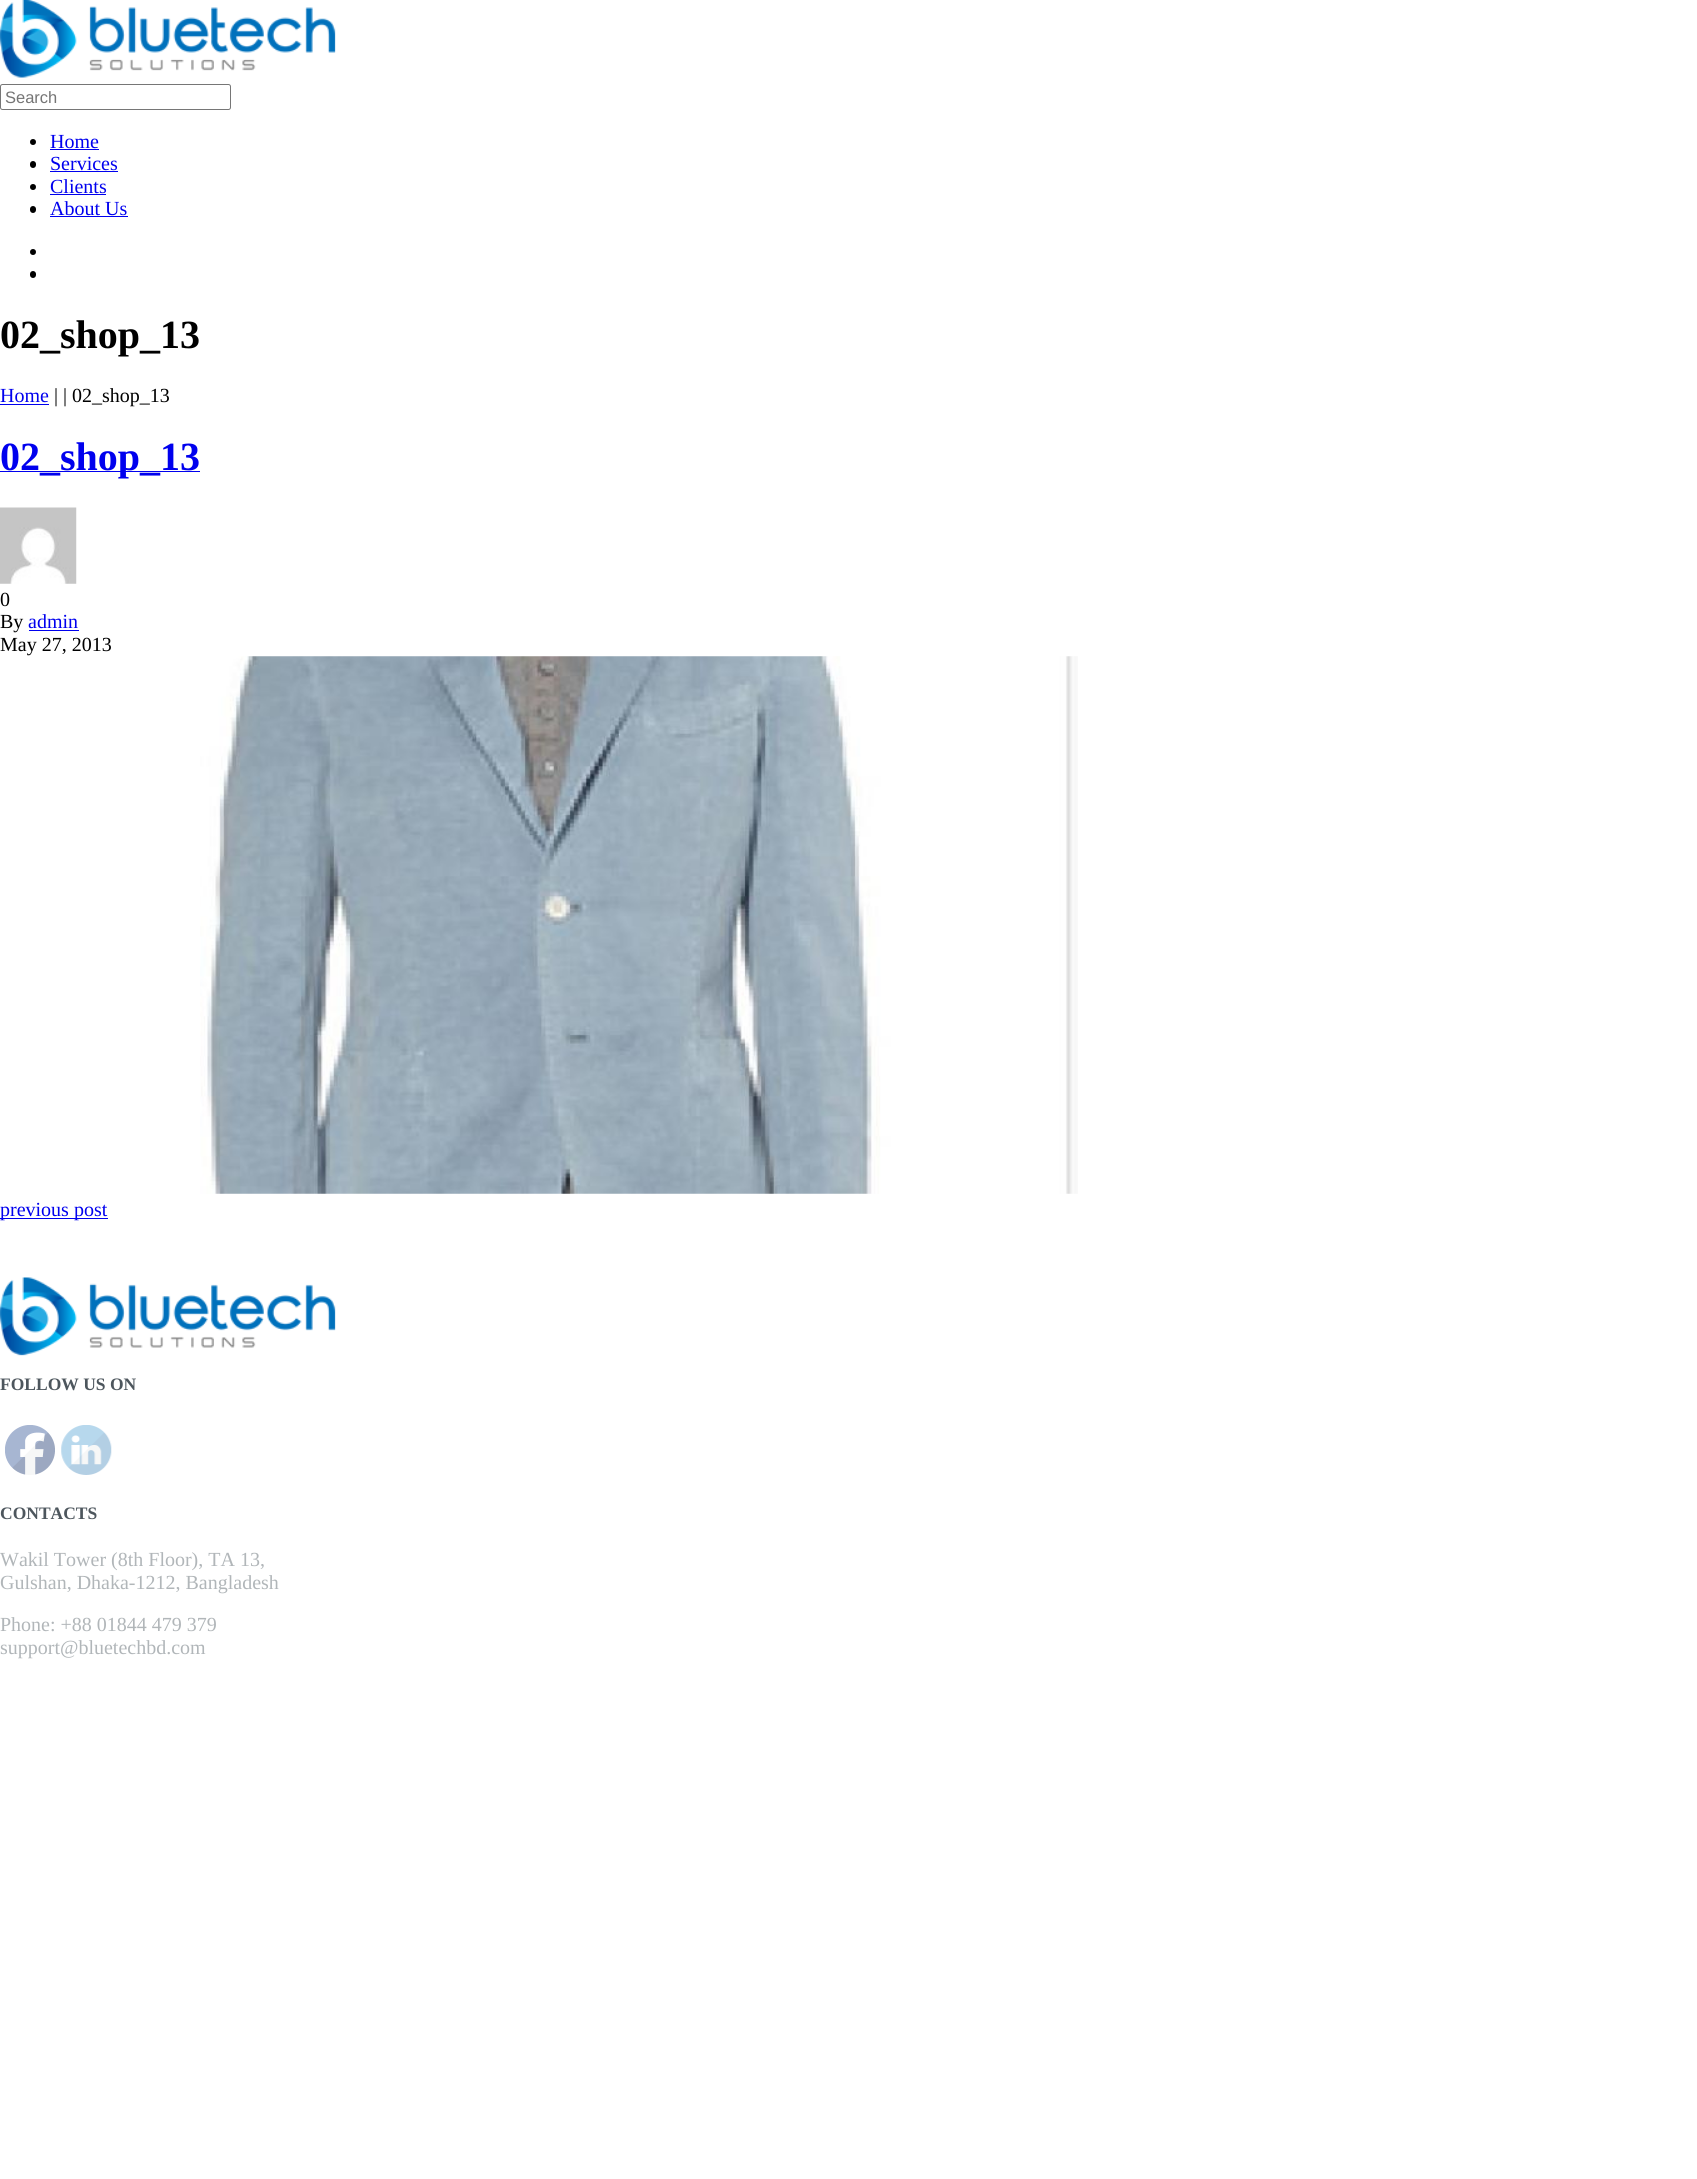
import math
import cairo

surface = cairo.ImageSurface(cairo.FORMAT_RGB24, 1697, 2179)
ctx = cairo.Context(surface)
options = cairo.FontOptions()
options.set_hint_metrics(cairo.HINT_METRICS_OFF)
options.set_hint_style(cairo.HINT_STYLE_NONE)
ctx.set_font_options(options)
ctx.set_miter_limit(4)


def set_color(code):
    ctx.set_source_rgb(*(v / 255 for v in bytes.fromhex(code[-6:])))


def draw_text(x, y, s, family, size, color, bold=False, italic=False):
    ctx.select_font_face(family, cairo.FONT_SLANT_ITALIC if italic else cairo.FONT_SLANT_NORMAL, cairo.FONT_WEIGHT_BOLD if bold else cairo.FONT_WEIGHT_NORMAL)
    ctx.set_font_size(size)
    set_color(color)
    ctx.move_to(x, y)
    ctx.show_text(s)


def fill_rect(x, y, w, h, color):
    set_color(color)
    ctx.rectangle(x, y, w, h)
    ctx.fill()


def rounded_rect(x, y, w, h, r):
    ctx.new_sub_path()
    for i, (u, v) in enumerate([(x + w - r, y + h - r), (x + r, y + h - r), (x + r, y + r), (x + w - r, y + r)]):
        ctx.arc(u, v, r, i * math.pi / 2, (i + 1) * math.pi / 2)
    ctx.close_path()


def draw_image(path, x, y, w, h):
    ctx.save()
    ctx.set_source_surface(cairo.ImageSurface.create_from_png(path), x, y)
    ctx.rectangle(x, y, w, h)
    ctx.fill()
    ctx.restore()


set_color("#ffffff")
ctx.paint()
draw_image("assets/img1.png", 0, 0, 336, 78)
rounded_rect(0.5, 84.5, 230, 25, 2)
set_color("#767676")
ctx.set_line_width(1)
ctx.stroke()
draw_text(5, 103, "Search", "Liberation Sans", 16.5, "#757575")
set_color("#000000")
ctx.new_path()
ctx.arc(33, 142, 3, 0, 2 * math.pi)
ctx.fill()
draw_text(50, 148, "Home", "Liberation Serif", 20, "#0000ee")
fill_rect(50, 149, 49, 1, "#0000ee")
set_color("#000000")
rounded_rect(30, 161, 6, 7, 3)
ctx.fill()
draw_text(50, 170, "Services", "Liberation Serif", 20, "#0000ee")
fill_rect(50, 171, 68, 1, "#0000ee")
set_color("#000000")
ctx.new_path()
ctx.arc(33, 187, 3, 0, 2 * math.pi)
ctx.fill()
draw_text(50, 193, "Clients", "Liberation Serif", 20, "#0000ee")
fill_rect(50, 194, 56, 1, "#0000ee")
set_color("#000000")
rounded_rect(30, 206, 6, 7, 3)
ctx.fill()
draw_text(50, 215, "About Us", "Liberation Serif", 20, "#0000ee")
fill_rect(50, 216, 78, 1, "#0000ee")
set_color("#000000")
ctx.new_path()
ctx.arc(33, 252, 3, 0, 2 * math.pi)
ctx.fill()
rounded_rect(30, 271, 6, 7, 3)
ctx.fill()
draw_text(0, 348, "02_shop_13", "Liberation Serif", 40, "#000000", bold=True)
draw_text(0, 402, "Home", "Liberation Serif", 20, "#0000ee")
fill_rect(0, 404, 49, 1, "#0000ee")
draw_text(54, 402, "| | 02_shop_13", "Liberation Serif", 20, "#000000")
fill_rect(0, 471, 200, 1, "#0000ee")
draw_text(0, 470, "02_shop_13", "Liberation Serif", 40, "#0000ee", bold=True)
draw_image("assets/img2.png", 0, 507, 77, 77)
draw_text(0, 606, "0", "Liberation Serif", 20, "#000000")
draw_text(0, 628, "By", "Liberation Serif", 20, "#000000")
draw_text(28, 628, "admin", "Liberation Serif", 20, "#0000ee")
fill_rect(29, 630, 50, 1, "#0000ee")
draw_text(0, 651, "May 27, 2013", "Liberation Serif", 20, "#000000")
draw_image("assets/img3.png", 200, 656, 878, 538)
fill_rect(0, 1218, 108, 1, "#0000ee")
draw_text(0, 1216, "previous post", "Liberation Serif", 20, "#0000ee")
draw_image("assets/img4.png", 0, 1277, 336, 79)
draw_text(0, 1390, "FOLLOW US ON", "Liberation Serif", 17.5, "#4d565d", bold=True)
draw_image("assets/img5.png", 5, 1425, 50, 50)
draw_image("assets/img6.png", 61, 1425, 51, 50)
draw_text(0, 1519, "CONTACTS", "Liberation Serif", 17.5, "#4d565d", bold=True)
draw_text(0, 1566, "Wakil Tower (8th Floor), TA 13,", "Liberation Serif", 20, "#b1b6b9")
draw_text(0, 1589, "Gulshan, Dhaka-1212, Bangladesh", "Liberation Serif", 20, "#b1b6b9")
draw_text(0, 1631, "Phone: +88 01844 479 379", "Liberation Serif", 20, "#b1b6b9")
draw_text(0, 1654, "support@bluetechbd.com", "Liberation Serif", 20, "#b1b6b9")
surface.write_to_png("output.png")
